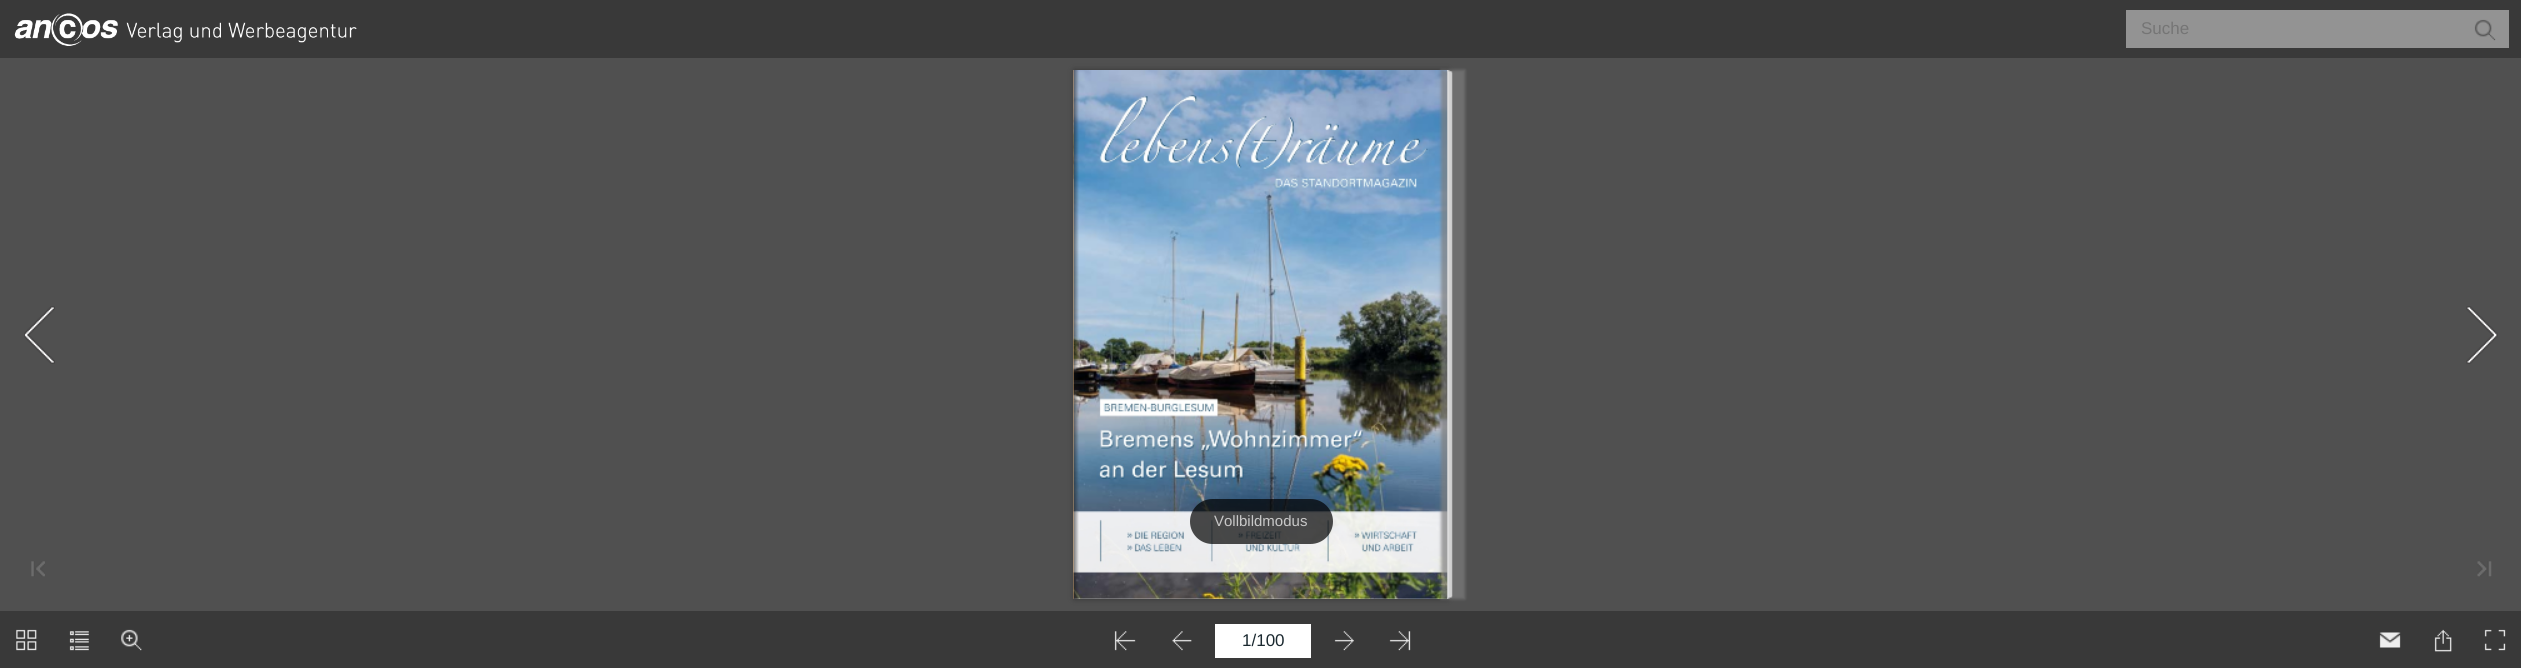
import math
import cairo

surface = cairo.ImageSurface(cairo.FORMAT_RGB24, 2521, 668)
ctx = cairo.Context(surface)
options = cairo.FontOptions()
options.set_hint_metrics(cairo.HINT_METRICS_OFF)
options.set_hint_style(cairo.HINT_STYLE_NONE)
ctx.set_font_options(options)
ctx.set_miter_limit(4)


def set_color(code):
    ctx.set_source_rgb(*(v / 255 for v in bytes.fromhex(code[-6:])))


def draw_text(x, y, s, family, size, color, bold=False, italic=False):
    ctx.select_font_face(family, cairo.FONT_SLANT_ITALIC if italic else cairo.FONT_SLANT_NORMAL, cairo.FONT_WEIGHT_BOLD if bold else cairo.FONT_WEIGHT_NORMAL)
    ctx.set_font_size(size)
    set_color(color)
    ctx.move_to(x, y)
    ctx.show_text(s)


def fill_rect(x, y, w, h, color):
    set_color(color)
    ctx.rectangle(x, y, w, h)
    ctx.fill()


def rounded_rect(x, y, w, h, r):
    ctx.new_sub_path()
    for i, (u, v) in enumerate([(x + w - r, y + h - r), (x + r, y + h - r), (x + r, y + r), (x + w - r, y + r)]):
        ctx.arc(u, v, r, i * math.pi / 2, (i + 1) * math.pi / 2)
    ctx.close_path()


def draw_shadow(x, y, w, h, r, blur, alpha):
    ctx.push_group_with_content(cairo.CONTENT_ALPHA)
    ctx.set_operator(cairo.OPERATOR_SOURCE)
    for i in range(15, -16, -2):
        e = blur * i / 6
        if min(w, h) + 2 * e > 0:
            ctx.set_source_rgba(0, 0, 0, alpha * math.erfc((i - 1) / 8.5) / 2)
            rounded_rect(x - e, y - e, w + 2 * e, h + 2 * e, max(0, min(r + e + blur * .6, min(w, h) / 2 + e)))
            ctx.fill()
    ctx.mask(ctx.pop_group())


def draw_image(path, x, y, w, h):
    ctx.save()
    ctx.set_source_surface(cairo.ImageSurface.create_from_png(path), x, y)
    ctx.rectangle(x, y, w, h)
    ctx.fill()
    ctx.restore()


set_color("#505050")
ctx.paint()
fill_rect(0, 0, 2521, 58, "#393939")
draw_image("assets/img1.png", 14, 13, 343, 33)
fill_rect(2126, 10, 383, 38, "#939393")
draw_text(2141, 34, "Suche", "Liberation Sans", 17, "#757575")
draw_image("assets/img2.png", 2474, 19, 22, 22)
draw_image("assets/img3.png", 24, 306, 31, 58)
draw_image("assets/img4.png", 2466, 306, 32, 58)
set_color("#282828")
draw_shadow(1074, 70, 374, 529, 0, 3, 0.7)
draw_image("assets/img5.png", 1073, 70, 1, 529)
fill_rect(1074, 70, 374, 529, "#ffffff")
draw_image("assets/img7.png", 1073, 70, 1, 529)
draw_image("assets/img8.png", 1073, 70, 375, 529)
set_color("#7d7d7d")
draw_shadow(1441, 70, 24, 529, 0, 1.5, 0.7)
draw_image("assets/img6.png", 1447, 70, 6, 529)
gradient = cairo.LinearGradient(1074, 334, 1079, 334)
gradient.add_color_stop_rgba(0, 0.078, 0.078, 0.078, 0.5)
gradient.add_color_stop_rgba(1, 0.078, 0.078, 0.078, 0)
ctx.set_source(gradient)
ctx.rectangle(1074, 70, 5, 529)
ctx.fill()
ctx.set_source_rgba(0, 0, 0, 0.7)
rounded_rect(1190, 499, 143, 45, 22.5)
ctx.fill()
draw_text(1214, 526, "Vollbildmodus", "Liberation Sans", 15, "#c8c8c8")
draw_image("assets/img9.png", 31, 561, 14, 16)
draw_image("assets/img10.png", 2477, 561, 15, 16)
fill_rect(0, 611, 2521, 57, "#393939")
draw_image("assets/img11.png", 16, 629, 21, 22)
draw_image("assets/img12.png", 69, 631, 20, 20)
draw_image("assets/img13.png", 121, 629, 21, 22)
draw_image("assets/img14.png", 1114, 631, 22, 20)
draw_image("assets/img15.png", 1172, 631, 20, 20)
fill_rect(1215, 624, 96, 34, "#ffffff")
draw_text(1242, 646, "1/100", "Liberation Sans", 17, "#1b2930")
draw_image("assets/img16.png", 1334, 631, 20, 20)
draw_image("assets/img17.png", 1389, 631, 22, 20)
draw_image("assets/img18.png", 2379, 632, 22, 16)
draw_image("assets/img19.png", 2434, 629, 18, 23)
draw_image("assets/img20.png", 2484, 629, 22, 22)
surface.write_to_png("output.png")
